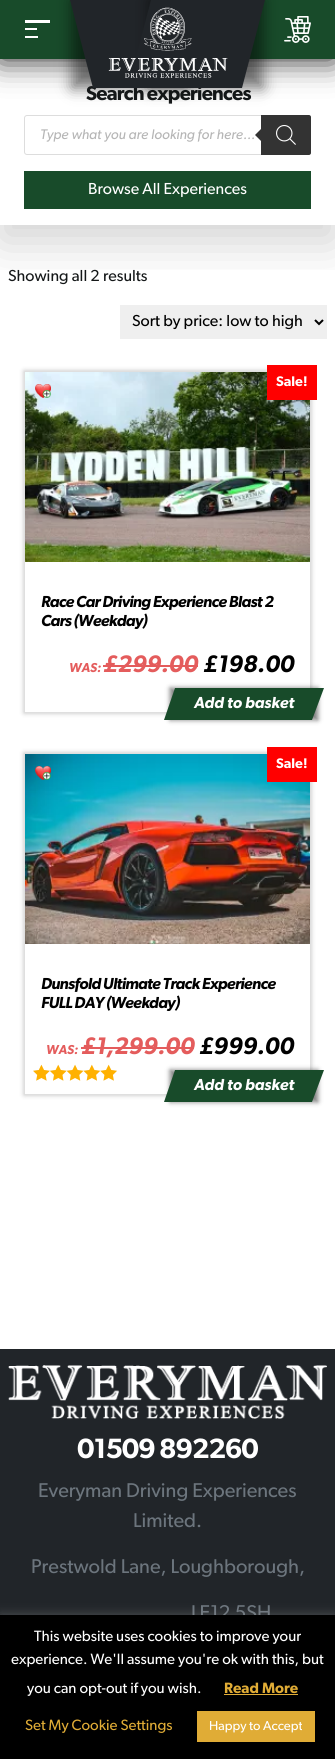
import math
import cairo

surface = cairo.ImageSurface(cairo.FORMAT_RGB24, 335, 1759)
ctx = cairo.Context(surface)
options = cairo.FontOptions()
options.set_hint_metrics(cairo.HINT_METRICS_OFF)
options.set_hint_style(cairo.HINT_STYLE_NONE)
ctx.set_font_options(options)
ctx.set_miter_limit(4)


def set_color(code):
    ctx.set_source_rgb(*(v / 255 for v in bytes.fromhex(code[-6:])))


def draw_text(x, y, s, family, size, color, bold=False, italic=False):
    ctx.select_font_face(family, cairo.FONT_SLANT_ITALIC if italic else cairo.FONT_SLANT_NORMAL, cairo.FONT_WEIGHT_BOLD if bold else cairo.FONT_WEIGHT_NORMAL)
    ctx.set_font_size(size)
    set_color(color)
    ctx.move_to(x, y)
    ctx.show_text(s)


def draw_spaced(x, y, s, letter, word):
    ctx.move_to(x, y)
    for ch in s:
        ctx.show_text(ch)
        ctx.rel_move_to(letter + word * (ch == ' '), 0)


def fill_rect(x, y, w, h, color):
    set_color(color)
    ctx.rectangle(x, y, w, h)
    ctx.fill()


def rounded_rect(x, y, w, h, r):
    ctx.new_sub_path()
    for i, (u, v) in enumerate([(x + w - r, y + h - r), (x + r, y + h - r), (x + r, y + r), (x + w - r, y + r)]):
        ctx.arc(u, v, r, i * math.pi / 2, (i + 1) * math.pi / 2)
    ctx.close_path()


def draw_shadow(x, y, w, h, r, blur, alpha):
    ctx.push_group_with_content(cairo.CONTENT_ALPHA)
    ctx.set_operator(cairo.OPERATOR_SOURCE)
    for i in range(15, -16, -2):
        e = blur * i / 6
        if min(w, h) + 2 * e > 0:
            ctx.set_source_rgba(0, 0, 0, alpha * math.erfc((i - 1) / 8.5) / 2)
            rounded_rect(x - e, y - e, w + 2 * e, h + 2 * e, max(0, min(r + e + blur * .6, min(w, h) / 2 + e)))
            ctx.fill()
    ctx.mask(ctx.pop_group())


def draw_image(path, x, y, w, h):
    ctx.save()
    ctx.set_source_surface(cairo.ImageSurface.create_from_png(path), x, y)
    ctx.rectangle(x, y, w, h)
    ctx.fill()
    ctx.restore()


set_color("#ffffff")
ctx.paint()
set_color("#181818")
draw_shadow(0, 0, 98, 59, 0, 16, 1)
fill_rect(120, 305, 207, 34, "#efefef")
ctx.save()
ctx.rectangle(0, 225, 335, 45)
ctx.clip()
set_color("#000000")
draw_shadow(0, 75, 335, 166, 0, 24, 0.18)
ctx.restore()
fill_rect(0, 0, 86, 59, "#184b2a")
fill_rect(25, 20, 25, 3, "#ffffff")
fill_rect(25, 28, 12, 2, "#ffffff")
fill_rect(25, 36, 13, 2, "#ffffff")
set_color("#000000")
draw_shadow(72, 0, 114, 88, 0, 7.5, 0.5)
set_color("#181818")
draw_shadow(238, 0, 97, 59, 0, 16, 1)
ctx.select_font_face("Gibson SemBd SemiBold")
ctx.set_font_size(20)
set_color("#151819")
draw_spaced(86, 100, "Search experiences", -0.75, 0)
set_color("#212529")
ctx.new_path()
ctx.move_to(70, 0)
ctx.line_to(184, 0)
ctx.line_to(207, 88)
ctx.line_to(93, 88)
ctx.close_path()
ctx.fill()
fill_rect(249, 0, 86, 59, "#184b2a")
draw_image("assets/img2.png", 284, 16, 27, 27)
set_color("#000000")
draw_shadow(149, 0, 114, 88, 0, 7.5, 0.5)
set_color("#212529")
ctx.new_path()
ctx.move_to(151, 0)
ctx.line_to(265, 0)
ctx.line_to(242, 88)
ctx.line_to(128, 88)
ctx.close_path()
ctx.fill()
draw_image("assets/img1.png", 108, 7, 120, 71)
rounded_rect(24.5, 115.5, 286, 39, 2.5)
set_color("#dddddd")
ctx.set_line_width(1)
ctx.stroke()
draw_text(40, 139, "Type what you are looking for here...", "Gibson", 14, "#b6b6b6", italic=True)
set_color("#333333")
ctx.new_path()
ctx.move_to(261, 115)
ctx.line_to(309, 115)
ctx.curve_to(310, 115, 311, 116, 311, 117)
ctx.line_to(311, 153)
ctx.curve_to(311, 154, 310, 155, 309, 155)
ctx.line_to(261, 155)
ctx.close_path()
ctx.fill()
ctx.new_path()
ctx.move_to(263, 127)
ctx.line_to(263, 143)
ctx.line_to(255, 135)
ctx.close_path()
ctx.fill()
draw_image("assets/img3.png", 276, 125, 20, 20)
fill_rect(24, 171, 287, 38, "#184b2a")
draw_text(88, 194, "Browse All Experiences", "Gibson", 16, "#ffffff")
draw_text(8, 281, "Showing all 2 results", "Gibson", 16, "#151819")
ctx.new_path()
ctx.move_to(315, 320)
ctx.line_to(319, 324)
ctx.line_to(323, 320)
set_color("#000000")
ctx.set_line_width(2)
ctx.stroke()
draw_text(132, 326, "Sort by price: low to high", "Gibson", 16, "#000000")
ctx.save()
ctx.set_fill_rule(cairo.FILL_RULE_EVEN_ODD)
ctx.new_path()
ctx.move_to(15, 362)
ctx.line_to(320, 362)
ctx.line_to(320, 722)
ctx.line_to(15, 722)
ctx.close_path()
ctx.move_to(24, 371)
ctx.line_to(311, 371)
ctx.line_to(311, 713)
ctx.line_to(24, 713)
ctx.close_path()
ctx.clip()
set_color("#000000")
draw_shadow(24, 371, 287, 342, 0, 2.5, 0.25)
ctx.restore()
ctx.rectangle(24.5, 371.5, 286, 341)
set_color("#dfdfdf")
ctx.set_line_width(1)
ctx.stroke()
draw_image("assets/img4.png", 25, 372, 285, 190)
fill_rect(267, 365, 50, 35, "#ff0000")
draw_text(276, 386, "Sale!", "Gibson SemBd SemiBold", 14, "#ffffff")
ctx.select_font_face("Gibson SemBd SemiBold", cairo.FONT_SLANT_ITALIC)
ctx.set_font_size(16)
set_color("#000000")
draw_spaced(41, 607, "Race Car Driving Experience Blast 2", -0.65, 0)
draw_spaced(41, 626, "Cars (Weekday)", -0.65, 0)
draw_text(69, 672, "WAS:", "Gibson SemBd SemiBold", 13, "#e45c5c", italic=True)
draw_text(103, 672, "£299.00", "Gibson SemBd SemiBold", 24, "#e45c5c", italic=True)
fill_rect(103, 665, 95, 2, "#e45c5c")
draw_text(203, 672, "£198.00", "Gibson SemBd SemiBold", 24, "#000000", italic=True)
draw_image("assets/img5.png", 35, 384, 16, 14)
set_color("#000000")
draw_shadow(170, 688, 148, 32, 0, 2.5, 0.5)
set_color("#184b2a")
ctx.new_path()
ctx.move_to(175, 688)
ctx.line_to(324, 688)
ctx.line_to(312, 720)
ctx.line_to(164, 720)
ctx.close_path()
ctx.fill()
draw_text(194, 708, "Add to basket", "Gibson SemBd SemiBold", 16, "#ffffff", italic=True)
ctx.save()
ctx.set_fill_rule(cairo.FILL_RULE_EVEN_ODD)
ctx.new_path()
ctx.move_to(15, 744)
ctx.line_to(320, 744)
ctx.line_to(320, 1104)
ctx.line_to(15, 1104)
ctx.close_path()
ctx.move_to(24, 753)
ctx.line_to(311, 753)
ctx.line_to(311, 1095)
ctx.line_to(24, 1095)
ctx.close_path()
ctx.clip()
set_color("#000000")
draw_shadow(24, 753, 287, 342, 0, 2.5, 0.25)
ctx.restore()
ctx.rectangle(24.5, 753.5, 286, 341)
set_color("#dfdfdf")
ctx.stroke()
draw_image("assets/img6.png", 25, 754, 285, 190)
fill_rect(267, 747, 50, 35, "#ff0000")
draw_text(276, 768, "Sale!", "Gibson SemBd SemiBold", 14, "#ffffff")
ctx.select_font_face("Gibson SemBd SemiBold", cairo.FONT_SLANT_ITALIC)
ctx.set_font_size(16)
set_color("#000000")
draw_spaced(41, 989, "Dunsfold Ultimate Track Experience", -0.65, 0)
draw_spaced(41, 1008, "FULL DAY (Weekday)", -0.65, 0)
draw_text(46, 1054, "WAS:", "Gibson SemBd SemiBold", 13, "#e45c5c", italic=True)
draw_text(81, 1054, "£1,299.00", "Gibson SemBd SemiBold", 24, "#e45c5c", italic=True)
fill_rect(81, 1047, 113, 2, "#e45c5c")
draw_text(199, 1054, "£999.00", "Gibson SemBd SemiBold", 24, "#000000", italic=True)
draw_image("assets/img8.png", 34, 1065, 83, 16)
draw_image("assets/img7.png", 33, 1064, 84, 17)
draw_image("assets/img9.png", 35, 766, 16, 14)
set_color("#000000")
draw_shadow(170, 1070, 148, 32, 0, 2.5, 0.5)
set_color("#184b2a")
ctx.new_path()
ctx.move_to(175, 1070)
ctx.line_to(324, 1070)
ctx.line_to(312, 1102)
ctx.line_to(164, 1102)
ctx.close_path()
ctx.fill()
draw_text(194, 1090, "Add to basket", "Gibson SemBd SemiBold", 16, "#ffffff", italic=True)
fill_rect(0, 1349, 335, 266, "#212529")
draw_image("assets/img10.png", 8, 1365, 319, 54)
ctx.select_font_face("Gibson SemBd SemiBold")
ctx.set_font_size(28)
set_color("#ffffff")
draw_spaced(77, 1458, "01509 892260", -1.1, 0)
draw_text(38, 1497, "Everyman Driving Experiences", "Gibson", 20, "#6c757d")
draw_text(133, 1527, "Limited.", "Gibson", 20, "#6c757d")
draw_text(31, 1573, "Prestwold Lane, Loughborough,", "Gibson", 20, "#6c757d")
draw_text(191, 1619, "LE12 5SH", "Gibson", 20, "#6c757d")
set_color("#acabab")
draw_shadow(0, 1614, 335, 144, 0, 5, 0.3)
fill_rect(0, 1615, 335, 144, "#000000")
draw_text(34, 1641, "This website uses cookies to improve your", "Gibson", 15, "#ffffff")
draw_text(11, 1664, "experience. We'll assume you're ok with this, but", "Gibson", 15, "#ffffff")
draw_text(27, 1693, "you can opt-out if you wish.", "Gibson", 15, "#ffffff")
draw_text(224, 1693, "Read More", "Gibson SemBd SemiBold", 15, "#e0ac36")
fill_rect(224, 1694, 74, 1, "#e0ac36")
draw_text(25, 1730, "Set My Cookie Settings", "Gibson", 15, "#e0ac36")
fill_rect(197, 1711, 118, 31, "#e0ac36")
draw_text(209, 1730, "Happy to Accept", "Gibson", 13, "#ffffff")
surface.write_to_png("output.png")
